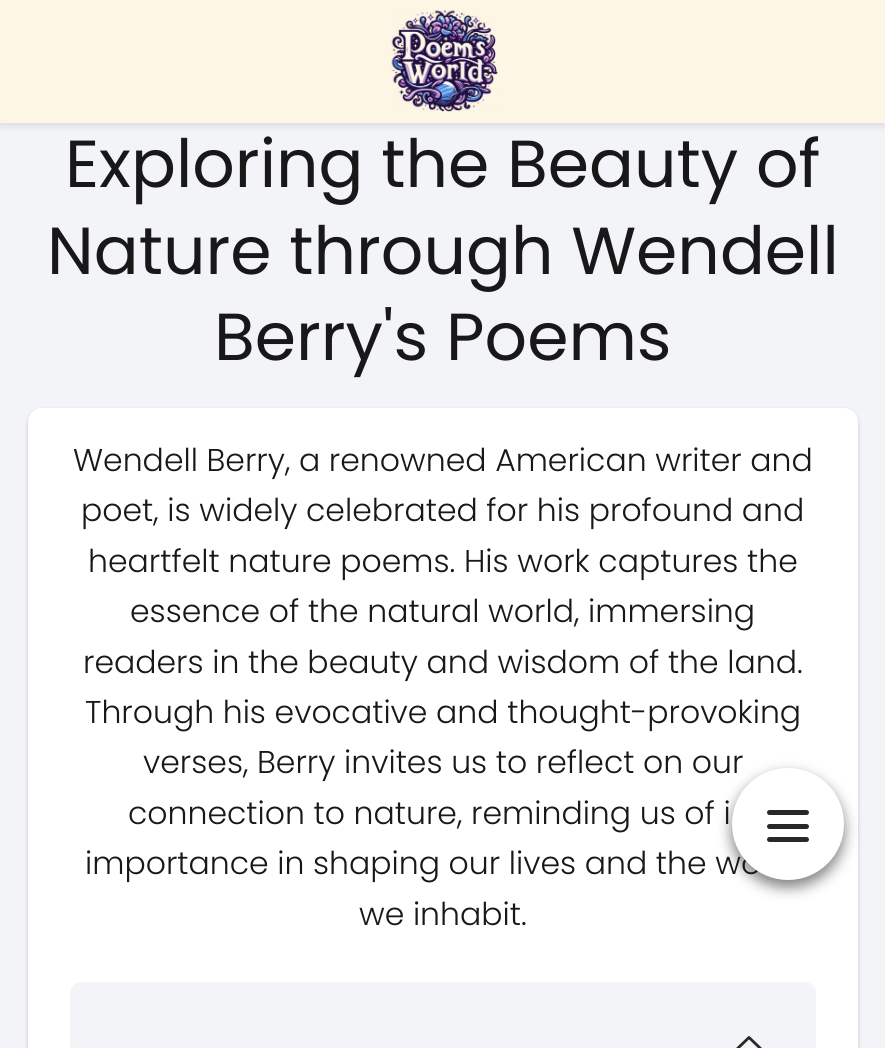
import math
import cairo

surface = cairo.ImageSurface(cairo.FORMAT_RGB24, 885, 1048)
ctx = cairo.Context(surface)
options = cairo.FontOptions()
options.set_hint_metrics(cairo.HINT_METRICS_OFF)
options.set_hint_style(cairo.HINT_STYLE_NONE)
ctx.set_font_options(options)
ctx.set_miter_limit(4)


def set_color(code):
    ctx.set_source_rgb(*(v / 255 for v in bytes.fromhex(code[-6:])))


def draw_text(x, y, s, family, size, color, bold=False, italic=False):
    ctx.select_font_face(family, cairo.FONT_SLANT_ITALIC if italic else cairo.FONT_SLANT_NORMAL, cairo.FONT_WEIGHT_BOLD if bold else cairo.FONT_WEIGHT_NORMAL)
    ctx.set_font_size(size)
    set_color(color)
    ctx.move_to(x, y)
    ctx.show_text(s)


def fill_rect(x, y, w, h, color):
    set_color(color)
    ctx.rectangle(x, y, w, h)
    ctx.fill()


def rounded_rect(x, y, w, h, r):
    ctx.new_sub_path()
    for i, (u, v) in enumerate([(x + w - r, y + h - r), (x + r, y + h - r), (x + r, y + r), (x + w - r, y + r)]):
        ctx.arc(u, v, r, i * math.pi / 2, (i + 1) * math.pi / 2)
    ctx.close_path()


def draw_shadow(x, y, w, h, r, blur, alpha):
    ctx.push_group_with_content(cairo.CONTENT_ALPHA)
    ctx.set_operator(cairo.OPERATOR_SOURCE)
    for i in range(15, -16, -2):
        e = blur * i / 6
        if min(w, h) + 2 * e > 0:
            ctx.set_source_rgba(0, 0, 0, alpha * math.erfc((i - 1) / 8.5) / 2)
            rounded_rect(x - e, y - e, w + 2 * e, h + 2 * e, max(0, min(r + e + blur * .6, min(w, h) / 2 + e)))
            ctx.fill()
    ctx.mask(ctx.pop_group())


def draw_image(path, x, y, w, h):
    ctx.save()
    ctx.set_source_surface(cairo.ImageSurface.create_from_png(path), x, y)
    ctx.rectangle(x, y, w, h)
    ctx.fill()
    ctx.restore()


set_color("#f3f4f8")
ctx.paint()
set_color("#000000")
draw_shadow(0, 4, 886, 122, 0, 3.5, 0.1)
fill_rect(0, 0, 885, 123, "#fdf6e4")
draw_image("assets/img1.png", 391, 10, 107, 102)
set_color("#000000")
draw_shadow(28, 410, 830, 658, 14, 2, 0.2)
set_color("#ffffff")
rounded_rect(28, 408, 830, 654, 14)
ctx.fill()
set_color("#000000")
draw_shadow(732, 775, 112, 112, 56, 7, 0.5)
draw_text(143, 773, "verses, Berry invites us to reflect on our", "Poppins Light", 31.5, "#181818")
draw_text(85, 874, "importance in shaping our lives and the wo", "Poppins Light", 31.5, "#181818")
set_color("#ffffff")
ctx.new_path()
ctx.arc(788, 824, 56, 0, 2 * math.pi)
ctx.fill()
set_color("#282828")
rounded_rect(767, 810, 42, 5, 2.5)
ctx.fill()
rounded_rect(767, 824, 42, 5, 2.5)
ctx.fill()
rounded_rect(767, 837, 42, 5, 2.5)
ctx.fill()
draw_text(65, 187, "Exploring the Beauty of", "Poppins", 66.5, "#181818")
draw_text(47, 274, "Nature through Wendell", "Poppins", 66.5, "#181818")
draw_text(214, 360, "Berry's Poems", "Poppins", 66.5, "#181818")
draw_text(73, 471, "Wendell Berry, a renowned American writer and", "Poppins Light", 31.5, "#181818")
draw_text(81, 521, "poet, is widely celebrated for his profound and", "Poppins Light", 31.5, "#181818")
draw_text(88, 572, "heartfelt nature poems. His work captures the", "Poppins Light", 31.5, "#181818")
draw_text(130, 622, "essence of the natural world, immersing", "Poppins Light", 31.5, "#181818")
draw_text(83, 673, "readers in the beauty and wisdom of the land.", "Poppins Light", 31.5, "#181818")
draw_text(85, 723, "Through his evocative and thought-provoking", "Poppins Light", 31.5, "#181818")
draw_text(128, 824, "connection to nature, reminding us of i", "Poppins Light", 31.5, "#181818")
draw_text(359, 925, "we inhabit.", "Poppins Light", 31.5, "#181818")
set_color("#f3f4f8")
rounded_rect(70, 982, 746, 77, 11)
ctx.fill()
ctx.new_path()
ctx.move_to(737.5, 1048.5)
ctx.line_to(749, 1037.5)
ctx.line_to(760.5, 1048.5)
set_color("#282828")
ctx.set_line_width(2.8)
ctx.set_line_cap(cairo.LINE_CAP_ROUND)
ctx.set_line_join(cairo.LINE_JOIN_ROUND)
ctx.stroke()
surface.write_to_png("output.png")
